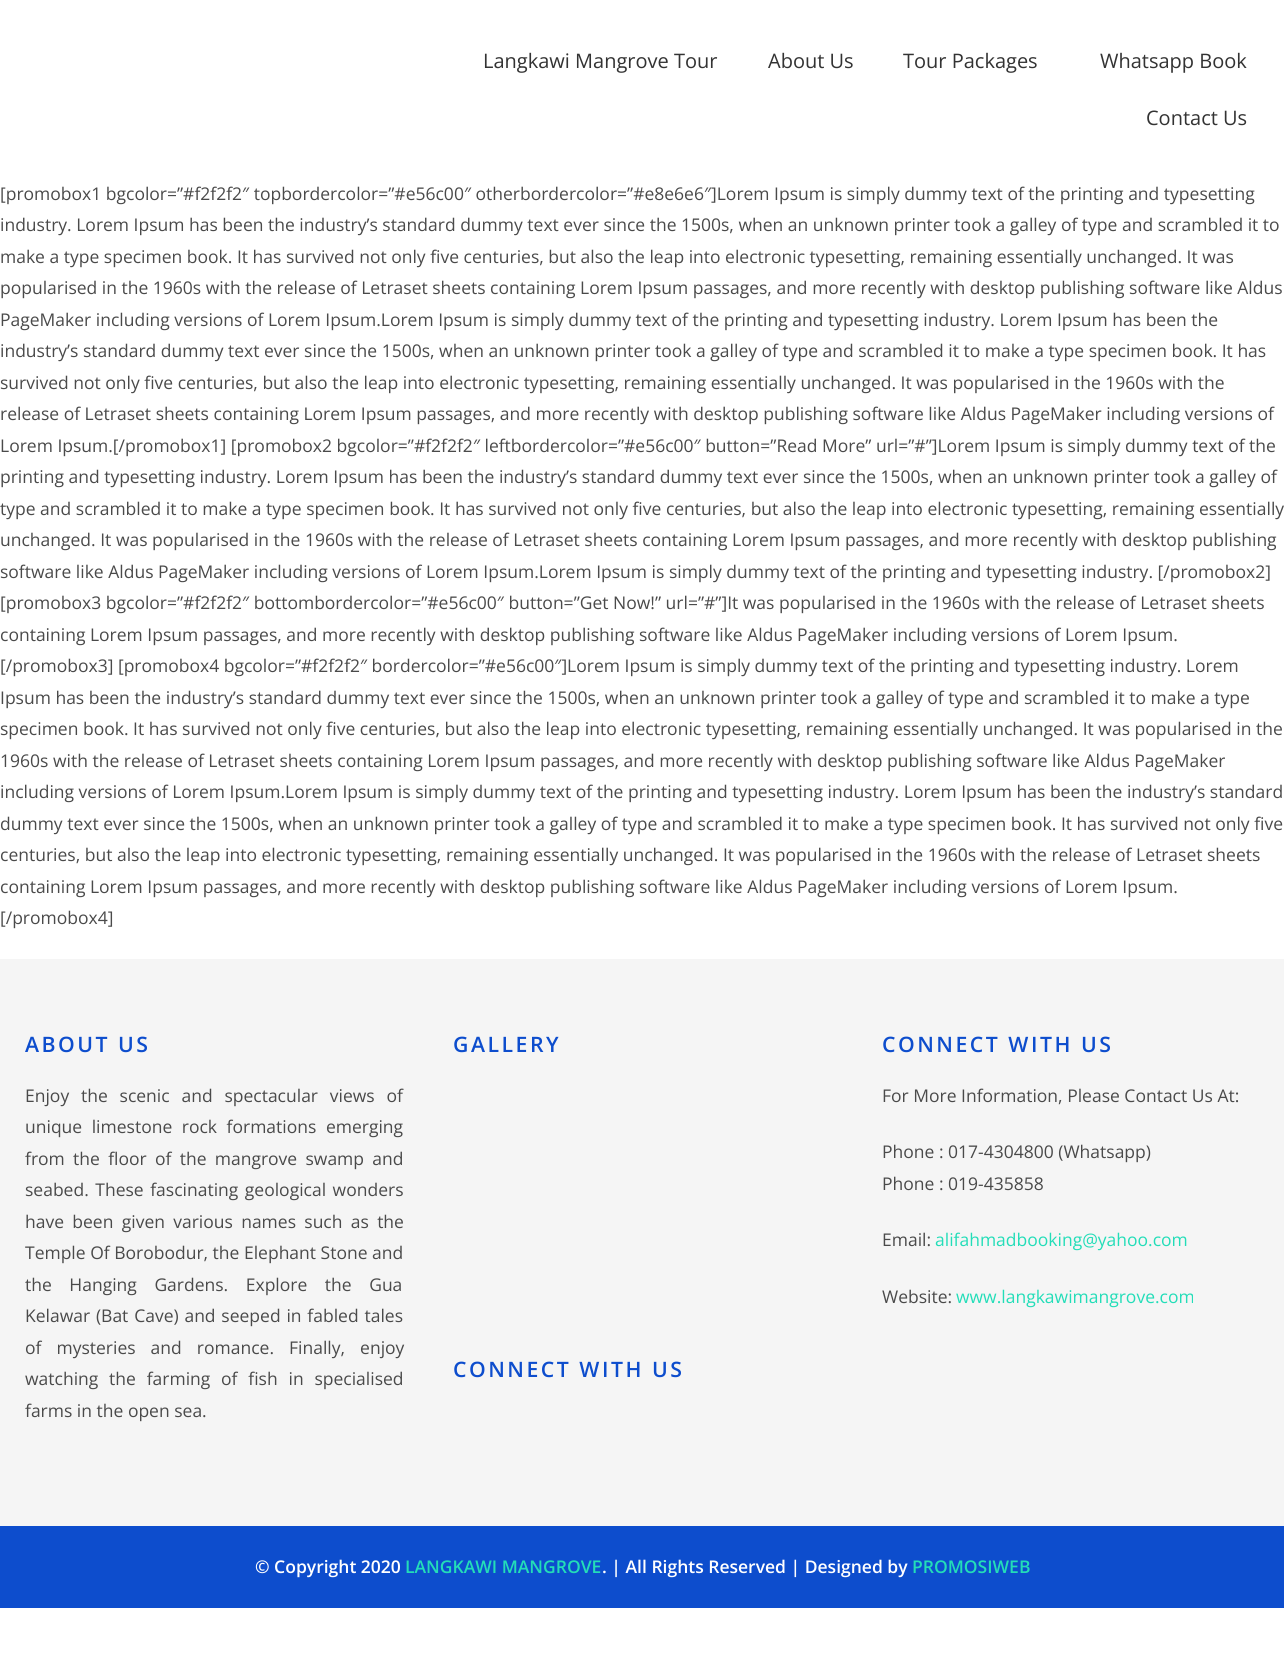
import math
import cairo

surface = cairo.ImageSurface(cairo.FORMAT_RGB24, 1284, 1658)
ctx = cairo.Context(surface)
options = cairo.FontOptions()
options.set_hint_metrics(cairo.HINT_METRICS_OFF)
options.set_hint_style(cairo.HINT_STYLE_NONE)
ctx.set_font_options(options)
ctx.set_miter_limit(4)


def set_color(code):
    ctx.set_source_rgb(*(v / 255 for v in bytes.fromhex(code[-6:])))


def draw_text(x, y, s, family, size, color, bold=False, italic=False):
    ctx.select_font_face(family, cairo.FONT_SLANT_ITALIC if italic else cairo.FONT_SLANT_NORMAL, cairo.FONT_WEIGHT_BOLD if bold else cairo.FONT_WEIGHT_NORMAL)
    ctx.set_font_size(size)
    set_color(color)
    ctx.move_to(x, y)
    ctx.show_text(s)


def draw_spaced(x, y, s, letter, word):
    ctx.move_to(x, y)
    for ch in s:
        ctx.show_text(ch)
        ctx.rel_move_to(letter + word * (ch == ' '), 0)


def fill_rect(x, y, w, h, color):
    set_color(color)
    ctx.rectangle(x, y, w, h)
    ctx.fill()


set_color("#ffffff")
ctx.paint()
draw_text(483, 68, "Langkawi Mangrove Tour", "Open Sans", 20, "#333333")
draw_text(768, 68, "About Us", "Open Sans", 20, "#333333")
draw_text(903, 68, "Tour Packages", "Open Sans", 20, "#333333")
draw_text(1100, 68, "Whatsapp Book", "Open Sans", 20, "#333333")
draw_text(1146, 125, "Contact Us", "Open Sans", 20, "#333333")
draw_text(0, 200, "[promobox1 bgcolor=”#f2f2f2″ topbordercolor=”#e56c00″ otherbordercolor=”#e8e6e6″]Lorem Ipsum is simply dummy text of the printing and typesetting", "Open Sans", 17.5, "#4a4a4a")
draw_text(0, 231, "industry. Lorem Ipsum has been the industry’s standard dummy text ever since the 1500s, when an unknown printer took a galley of type and scrambled it to", "Open Sans", 17.5, "#4a4a4a")
draw_text(0, 263, "make a type specimen book. It has survived not only five centuries, but also the leap into electronic typesetting, remaining essentially unchanged. It was", "Open Sans", 17.5, "#4a4a4a")
draw_text(0, 294, "popularised in the 1960s with the release of Letraset sheets containing Lorem Ipsum passages, and more recently with desktop publishing software like Aldus", "Open Sans", 17.5, "#4a4a4a")
draw_text(0, 326, "PageMaker including versions of Lorem Ipsum.Lorem Ipsum is simply dummy text of the printing and typesetting industry. Lorem Ipsum has been the", "Open Sans", 17.5, "#4a4a4a")
draw_text(0, 357, "industry’s standard dummy text ever since the 1500s, when an unknown printer took a galley of type and scrambled it to make a type specimen book. It has", "Open Sans", 17.5, "#4a4a4a")
draw_text(0, 389, "survived not only five centuries, but also the leap into electronic typesetting, remaining essentially unchanged. It was popularised in the 1960s with the", "Open Sans", 17.5, "#4a4a4a")
draw_text(0, 420, "release of Letraset sheets containing Lorem Ipsum passages, and more recently with desktop publishing software like Aldus PageMaker including versions of", "Open Sans", 17.5, "#4a4a4a")
draw_text(0, 452, "Lorem Ipsum.[/promobox1] [promobox2 bgcolor=”#f2f2f2″ leftbordercolor=”#e56c00″ button=”Read More” url=”#”]Lorem Ipsum is simply dummy text of the", "Open Sans", 17.5, "#4a4a4a")
draw_text(0, 483, "printing and typesetting industry. Lorem Ipsum has been the industry’s standard dummy text ever since the 1500s, when an unknown printer took a galley of", "Open Sans", 17.5, "#4a4a4a")
draw_text(0, 515, "type and scrambled it to make a type specimen book. It has survived not only five centuries, but also the leap into electronic typesetting, remaining essentially", "Open Sans", 17.5, "#4a4a4a")
draw_text(0, 546, "unchanged. It was popularised in the 1960s with the release of Letraset sheets containing Lorem Ipsum passages, and more recently with desktop publishing", "Open Sans", 17.5, "#4a4a4a")
draw_text(0, 578, "software like Aldus PageMaker including versions of Lorem Ipsum.Lorem Ipsum is simply dummy text of the printing and typesetting industry. [/promobox2]", "Open Sans", 17.5, "#4a4a4a")
draw_text(0, 609, "[promobox3 bgcolor=”#f2f2f2″ bottombordercolor=”#e56c00″ button=”Get Now!” url=”#”]It was popularised in the 1960s with the release of Letraset sheets", "Open Sans", 17.5, "#4a4a4a")
draw_text(0, 641, "containing Lorem Ipsum passages, and more recently with desktop publishing software like Aldus PageMaker including versions of Lorem Ipsum.", "Open Sans", 17.5, "#4a4a4a")
draw_text(0, 672, "[/promobox3] [promobox4 bgcolor=”#f2f2f2″ bordercolor=”#e56c00″]Lorem Ipsum is simply dummy text of the printing and typesetting industry. Lorem", "Open Sans", 17.5, "#4a4a4a")
draw_text(0, 704, "Ipsum has been the industry’s standard dummy text ever since the 1500s, when an unknown printer took a galley of type and scrambled it to make a type", "Open Sans", 17.5, "#4a4a4a")
draw_text(0, 735, "specimen book. It has survived not only five centuries, but also the leap into electronic typesetting, remaining essentially unchanged. It was popularised in the", "Open Sans", 17.5, "#4a4a4a")
draw_text(0, 767, "1960s with the release of Letraset sheets containing Lorem Ipsum passages, and more recently with desktop publishing software like Aldus PageMaker", "Open Sans", 17.5, "#4a4a4a")
draw_text(0, 798, "including versions of Lorem Ipsum.Lorem Ipsum is simply dummy text of the printing and typesetting industry. Lorem Ipsum has been the industry’s standard", "Open Sans", 17.5, "#4a4a4a")
draw_text(0, 830, "dummy text ever since the 1500s, when an unknown printer took a galley of type and scrambled it to make a type specimen book. It has survived not only five", "Open Sans", 17.5, "#4a4a4a")
draw_text(0, 861, "centuries, but also the leap into electronic typesetting, remaining essentially unchanged. It was popularised in the 1960s with the release of Letraset sheets", "Open Sans", 17.5, "#4a4a4a")
draw_text(0, 893, "containing Lorem Ipsum passages, and more recently with desktop publishing software like Aldus PageMaker including versions of Lorem Ipsum.", "Open Sans", 17.5, "#4a4a4a")
draw_text(0, 924, "[/promobox4]", "Open Sans", 17.5, "#4a4a4a")
fill_rect(0, 959, 1284, 567, "#f5f5f5")
ctx.select_font_face("Open Sans SemiBold")
ctx.set_font_size(21.25)
set_color("#0d4dcd")
draw_spaced(25, 1052, "ABOUT US", 2.5, 0)
ctx.select_font_face("Open Sans")
ctx.set_font_size(17.5)
set_color("#4a4a4a")
draw_spaced(25, 1102, "Enjoy the scenic and spectacular views of", 0, 7.25)
draw_spaced(25, 1133, "unique limestone rock formations emerging", 0, 5)
draw_spaced(25, 1165, "from the floor of the mangrove swamp and", 0, 3.75)
draw_spaced(25, 1196, "seabed. These fascinating geological wonders", 0, 2)
draw_spaced(25, 1228, "have been given various names such as the", 0, 3.75)
draw_text(25, 1259, "Temple Of Borobodur, the Elephant Stone and", "Open Sans", 17.5, "#4a4a4a")
draw_spaced(25, 1291, "the Hanging Gardens. Explore the Gua", 0, 13)
draw_spaced(25, 1322, "Kelawar (Bat Cave) and seeped in fabled tales", 0, 1.25)
draw_spaced(25, 1354, "of mysteries and romance. Finally, enjoy", 0, 10.5)
draw_spaced(25, 1385, "watching the farming of fish in specialised", 0, 6.25)
draw_text(25, 1417, "farms in the open sea.", "Open Sans", 17.5, "#4a4a4a")
ctx.select_font_face("Open Sans SemiBold")
ctx.set_font_size(21.25)
set_color("#0d4dcd")
draw_spaced(453, 1052, "GALLERY", 2.5, 0)
draw_spaced(453, 1377, "CONNECT WITH US", 2.5, 0)
draw_spaced(882, 1052, "CONNECT WITH US", 2.5, 0)
draw_text(882, 1102, "For More Information, Please Contact Us At:", "Open Sans", 17.5, "#4a4a4a")
draw_text(882, 1158, "Phone : 017-4304800 (Whatsapp)", "Open Sans", 17.5, "#4a4a4a")
draw_text(882, 1190, "Phone : 019-435858", "Open Sans", 17.5, "#4a4a4a")
draw_text(882, 1246, "Email:", "Open Sans", 17.5, "#4a4a4a")
draw_text(935, 1246, "alifahmadbooking@yahoo.com", "Open Sans", 17.5, "#23ddb8")
draw_text(882, 1303, "Website:", "Open Sans", 17.5, "#4a4a4a")
draw_text(956, 1303, "www.langkawimangrove.com", "Open Sans", 17.5, "#23ddb8")
fill_rect(0, 1526, 1284, 82, "#0d4dcd")
draw_text(255, 1573, "© Copyright 2020", "Open Sans SemiBold", 17.5, "#ffffff")
draw_text(405, 1573, "LANGKAWI MANGROVE", "Open Sans SemiBold", 17.5, "#23ddb8")
draw_text(602, 1573, ". | All Rights Reserved | Designed by", "Open Sans SemiBold", 17.5, "#ffffff")
draw_text(912, 1573, "PROMOSIWEB", "Open Sans SemiBold", 17.5, "#23ddb8")
surface.write_to_png("output.png")
